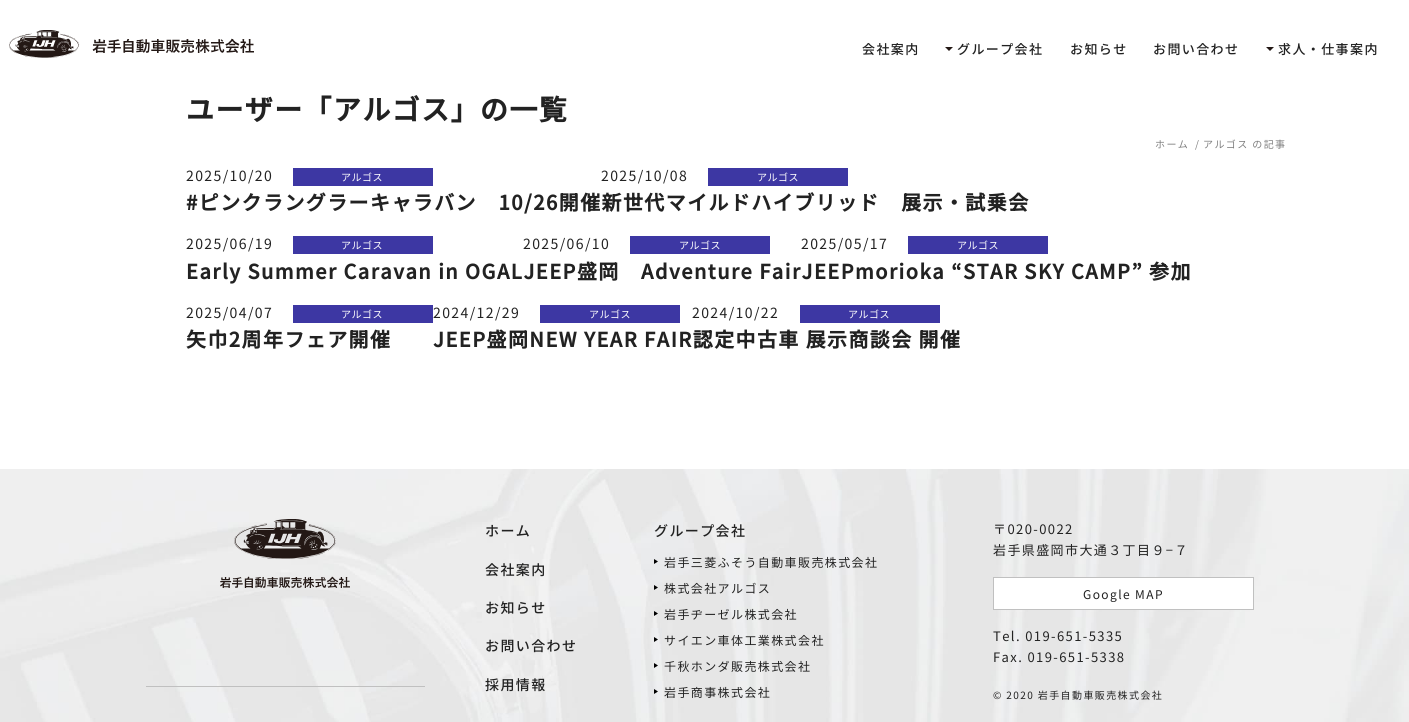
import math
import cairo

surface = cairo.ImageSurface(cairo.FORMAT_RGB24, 1409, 722)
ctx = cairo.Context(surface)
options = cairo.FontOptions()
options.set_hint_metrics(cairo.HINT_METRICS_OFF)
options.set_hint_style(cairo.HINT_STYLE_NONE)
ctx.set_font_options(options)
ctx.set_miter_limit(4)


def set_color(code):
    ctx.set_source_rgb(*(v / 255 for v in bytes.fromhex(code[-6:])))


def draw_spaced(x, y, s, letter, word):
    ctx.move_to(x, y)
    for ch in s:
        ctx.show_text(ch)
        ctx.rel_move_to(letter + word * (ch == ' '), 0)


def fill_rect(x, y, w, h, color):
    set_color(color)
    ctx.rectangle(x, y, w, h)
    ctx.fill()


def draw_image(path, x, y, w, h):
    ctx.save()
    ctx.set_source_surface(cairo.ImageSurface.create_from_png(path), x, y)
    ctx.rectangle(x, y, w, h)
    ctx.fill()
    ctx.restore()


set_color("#ffffff")
ctx.paint()
draw_image("assets/img1.png", 9, 30, 245, 28)
ctx.select_font_face("Noto Sans JP Medium")
ctx.set_font_size(13)
set_color("#222222")
draw_spaced(862, 54, "会社案内", 1.4, 0)
set_color("#231815")
ctx.new_path()
ctx.move_to(953, 47)
ctx.line_to(949, 51)
ctx.line_to(945, 47)
ctx.fill()
set_color("#222222")
draw_spaced(957, 54, "グループ会社", 1.4, 0)
draw_spaced(1070, 54, "お知らせ", 1.4, 0)
draw_spaced(1153, 54, "お問い合わせ", 1.4, 0)
set_color("#231815")
ctx.new_path()
ctx.move_to(1274, 47)
ctx.line_to(1270, 51)
ctx.line_to(1266, 47)
ctx.fill()
set_color("#222222")
draw_spaced(1278, 54, "求人・仕事案内", 1.4, 0)
ctx.select_font_face("Noto Sans JP", cairo.FONT_SLANT_NORMAL, cairo.FONT_WEIGHT_BOLD)
ctx.set_font_size(28)
draw_spaced(186, 120, "ユーザー「アルゴス」の一覧", 1.4, 0)
ctx.select_font_face("Noto Sans JP")
ctx.set_font_size(10)
set_color("#808080")
draw_spaced(1155, 148, "ホーム", 1.4, 0)
draw_spaced(1195, 148, "/", 1.4, 0)
draw_spaced(1203, 148, "アルゴス の記事", 1.4, 0)
ctx.set_font_size(14)
set_color("#222222")
draw_spaced(186, 181, "2025/10/20", 1.4, 0)
fill_rect(293, 168, 140, 18, "#3d37a3")
ctx.set_font_size(10)
set_color("#ffffff")
draw_spaced(341, 181, "アルゴス", 0.5, 0)
ctx.select_font_face("Noto Sans JP", cairo.FONT_SLANT_NORMAL, cairo.FONT_WEIGHT_BOLD)
ctx.set_font_size(20)
set_color("#222222")
draw_spaced(186, 210, "#ピンクラングラーキャラバン　10/26開催新世代マイルドハイブリッド　展示・試乗会", 1.4, 0)
ctx.select_font_face("Noto Sans JP")
ctx.set_font_size(14)
draw_spaced(601, 181, "2025/10/08", 1.4, 0)
fill_rect(708, 168, 140, 18, "#3d37a3")
ctx.set_font_size(10)
set_color("#ffffff")
draw_spaced(757, 181, "アルゴス", 0.5, 0)
ctx.set_font_size(14)
set_color("#222222")
draw_spaced(186, 249, "2025/06/19", 1.4, 0)
fill_rect(293, 236, 140, 18, "#3d37a3")
ctx.set_font_size(10)
set_color("#ffffff")
draw_spaced(341, 249, "アルゴス", 0.5, 0)
ctx.select_font_face("Noto Sans JP", cairo.FONT_SLANT_NORMAL, cairo.FONT_WEIGHT_BOLD)
ctx.set_font_size(20)
set_color("#222222")
draw_spaced(186, 279, "Early Summer Caravan in OGALJEEP盛岡　Adventure FairJEEPmorioka “STAR SKY CAMP” 参加", 1.4, 0)
ctx.select_font_face("Noto Sans JP")
ctx.set_font_size(14)
draw_spaced(523, 249, "2025/06/10", 1.4, 0)
fill_rect(630, 236, 140, 18, "#3d37a3")
ctx.set_font_size(10)
set_color("#ffffff")
draw_spaced(679, 249, "アルゴス", 0.5, 0)
ctx.set_font_size(14)
set_color("#222222")
draw_spaced(801, 249, "2025/05/17", 1.4, 0)
fill_rect(908, 236, 140, 18, "#3d37a3")
ctx.set_font_size(10)
set_color("#ffffff")
draw_spaced(957, 249, "アルゴス", 0.5, 0)
ctx.set_font_size(14)
set_color("#222222")
draw_spaced(186, 318, "2025/04/07", 1.4, 0)
fill_rect(293, 305, 140, 18, "#3d37a3")
ctx.set_font_size(10)
set_color("#ffffff")
draw_spaced(341, 318, "アルゴス", 0.5, 0)
ctx.select_font_face("Noto Sans JP", cairo.FONT_SLANT_NORMAL, cairo.FONT_WEIGHT_BOLD)
ctx.set_font_size(20)
set_color("#222222")
draw_spaced(186, 347, "矢巾2周年フェア開催", 1.4, 0)
ctx.select_font_face("Noto Sans JP")
ctx.set_font_size(14)
draw_spaced(433, 318, "2024/12/29", 1.4, 0)
fill_rect(540, 305, 140, 18, "#3d37a3")
ctx.set_font_size(10)
set_color("#ffffff")
draw_spaced(589, 318, "アルゴス", 0.5, 0)
ctx.select_font_face("Noto Sans JP", cairo.FONT_SLANT_NORMAL, cairo.FONT_WEIGHT_BOLD)
ctx.set_font_size(20)
set_color("#222222")
draw_spaced(433, 347, "JEEP盛岡NEW YEAR FAIR認定中古車 展示商談会 開催", 1.4, 0)
ctx.select_font_face("Noto Sans JP")
ctx.set_font_size(14)
draw_spaced(692, 318, "2024/10/22", 1.4, 0)
fill_rect(800, 305, 140, 18, "#3d37a3")
ctx.set_font_size(10)
set_color("#ffffff")
draw_spaced(848, 318, "アルゴス", 0.5, 0)
draw_image("assets/img2.png", 0, 469, 1409, 253)
fill_rect(146, 686, 279, 1, "#c0c0c0")
draw_image("assets/img3.png", 220, 519, 130, 69)
ctx.select_font_face("Noto Sans JP Medium")
ctx.set_font_size(14)
set_color("#222222")
draw_spaced(485, 536, "ホーム", 1.4, 0)
draw_spaced(485, 575, "会社案内", 1.4, 0)
draw_spaced(485, 613, "お知らせ", 1.4, 0)
draw_spaced(485, 651, "お問い合わせ", 1.4, 0)
draw_spaced(485, 690, "採用情報", 1.4, 0)
draw_spaced(654, 536, "グループ会社", 1.4, 0)
set_color("#000000")
ctx.new_path()
ctx.move_to(658, 561.5)
ctx.line_to(654, 559)
ctx.line_to(654, 564)
ctx.close_path()
ctx.move_to(658, 587.5)
ctx.line_to(654, 585)
ctx.line_to(654, 590)
ctx.close_path()
ctx.move_to(658, 613.5)
ctx.line_to(654, 611)
ctx.line_to(654, 616)
ctx.close_path()
ctx.fill()
ctx.select_font_face("Noto Sans JP")
ctx.set_font_size(12)
set_color("#222222")
draw_spaced(664, 567, "岩手三菱ふそう⾃動⾞販売株式会社", 1.4, 0)
draw_spaced(664, 593, "株式会社アルゴス", 1.4, 0)
draw_spaced(664, 619, "岩手ヂーゼル株式会社", 1.4, 0)
set_color("#000000")
ctx.new_path()
ctx.move_to(658, 639.5)
ctx.line_to(654, 637)
ctx.line_to(654, 642)
ctx.close_path()
ctx.move_to(658, 665.5)
ctx.line_to(654, 663)
ctx.line_to(654, 668)
ctx.close_path()
ctx.move_to(658, 691.5)
ctx.line_to(654, 689)
ctx.line_to(654, 694)
ctx.close_path()
ctx.fill()
set_color("#222222")
draw_spaced(664, 645, "サイエン車体工業株式会社", 1.4, 0)
draw_spaced(664, 671, "千秋ホンダ販売株式会社", 1.4, 0)
draw_spaced(664, 697, "岩手商事株式会社", 1.4, 0)
ctx.set_font_size(13)
draw_spaced(993, 534, "〒020-0022", 1.4, 0)
draw_spaced(993, 555, "岩手県盛岡市大通３丁目９−７", 1.4, 0)
set_color("#ffffff")
ctx.rectangle(993.5, 577.5, 260, 32)
ctx.fill_preserve()
set_color("#c0c0c0")
ctx.set_line_width(1)
ctx.stroke()
ctx.set_font_size(12)
set_color("#222222")
draw_spaced(1083, 599, "Google MAP", 1.4, 0)
ctx.set_font_size(13)
draw_spaced(993, 641, "Tel. 019-651-5335", 1.4, 0)
draw_spaced(993, 662, "Fax. 019-651-5338", 1.4, 0)
ctx.set_font_size(10)
draw_spaced(993, 699, "© 2020 岩手自動車販売株式会社", 1.4, 0)
surface.write_to_png("output.png")
